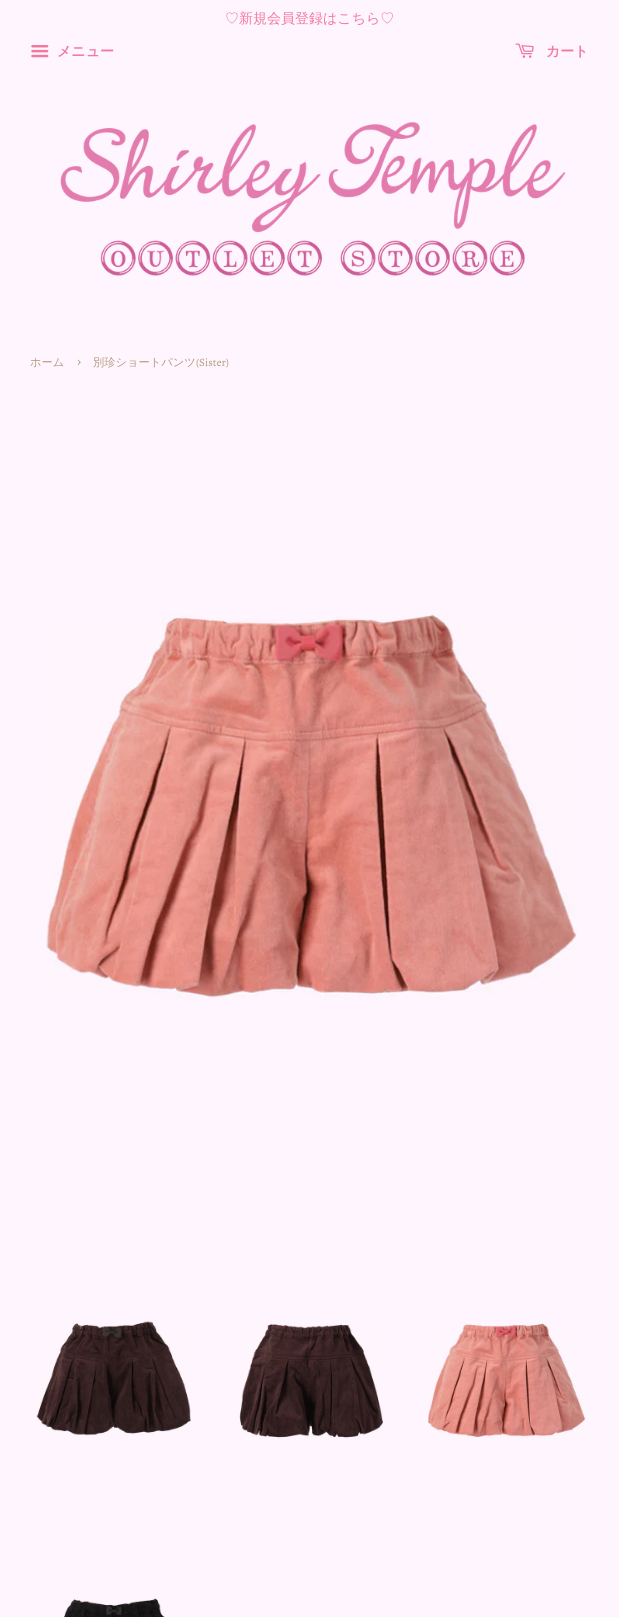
import math
import cairo

surface = cairo.ImageSurface(cairo.FORMAT_RGB24, 619, 1617)
ctx = cairo.Context(surface)
options = cairo.FontOptions()
options.set_hint_metrics(cairo.HINT_METRICS_OFF)
options.set_hint_style(cairo.HINT_STYLE_NONE)
ctx.set_font_options(options)
ctx.set_miter_limit(4)


def set_color(code):
    ctx.set_source_rgb(*(v / 255 for v in bytes.fromhex(code[-6:])))


def draw_text(x, y, s, family, size, color, bold=False, italic=False):
    ctx.select_font_face(family, cairo.FONT_SLANT_ITALIC if italic else cairo.FONT_SLANT_NORMAL, cairo.FONT_WEIGHT_BOLD if bold else cairo.FONT_WEIGHT_NORMAL)
    ctx.set_font_size(size)
    set_color(color)
    ctx.move_to(x, y)
    ctx.show_text(s)


def draw_image(path, x, y, w, h):
    ctx.save()
    ctx.set_source_surface(cairo.ImageSurface.create_from_png(path), x, y)
    ctx.rectangle(x, y, w, h)
    ctx.fill()
    ctx.restore()


set_color("#fff5ff")
ctx.paint()
draw_text(225, 23, "♡新規会員登録はこちら♡", "WenQuanYi Zen Hei Medium", 14, "#f2799e")
draw_image("assets/img1.png", 31, 45, 18, 13)
draw_text(57, 56, "メニュー", "WenQuanYi Zen Hei", 14, "#f2799e", bold=True)
draw_image("assets/img2.png", 515, 43, 19, 15)
draw_text(546, 56, "カート", "WenQuanYi Zen Hei", 14, "#f2799e", bold=True)
draw_image("assets/img3.png", 60, 122, 506, 154)
draw_text(30, 366, "ホーム", "WenQuanYi Zen Hei Medium", 11.25, "#b69a7a")
draw_text(77, 366, "›", "Alegreya", 16, "#b69a7a")
draw_text(93, 366, "別珍ショートパンツ", "WenQuanYi Zen Hei Medium", 11.25, "#b69a7a")
draw_text(196, 366, "(Sister)", "Alegreya", 11.25, "#b69a7a")
draw_image("assets/img4.png", 46, 613, 531, 387)
draw_image("assets/img5.png", 36, 1320, 155, 116)
draw_image("assets/img6.png", 239, 1324, 144, 117)
draw_image("assets/img7.png", 428, 1323, 158, 118)
draw_image("assets/img8.png", 64, 1598, 101, 19)
surface.write_to_png("output.png")
